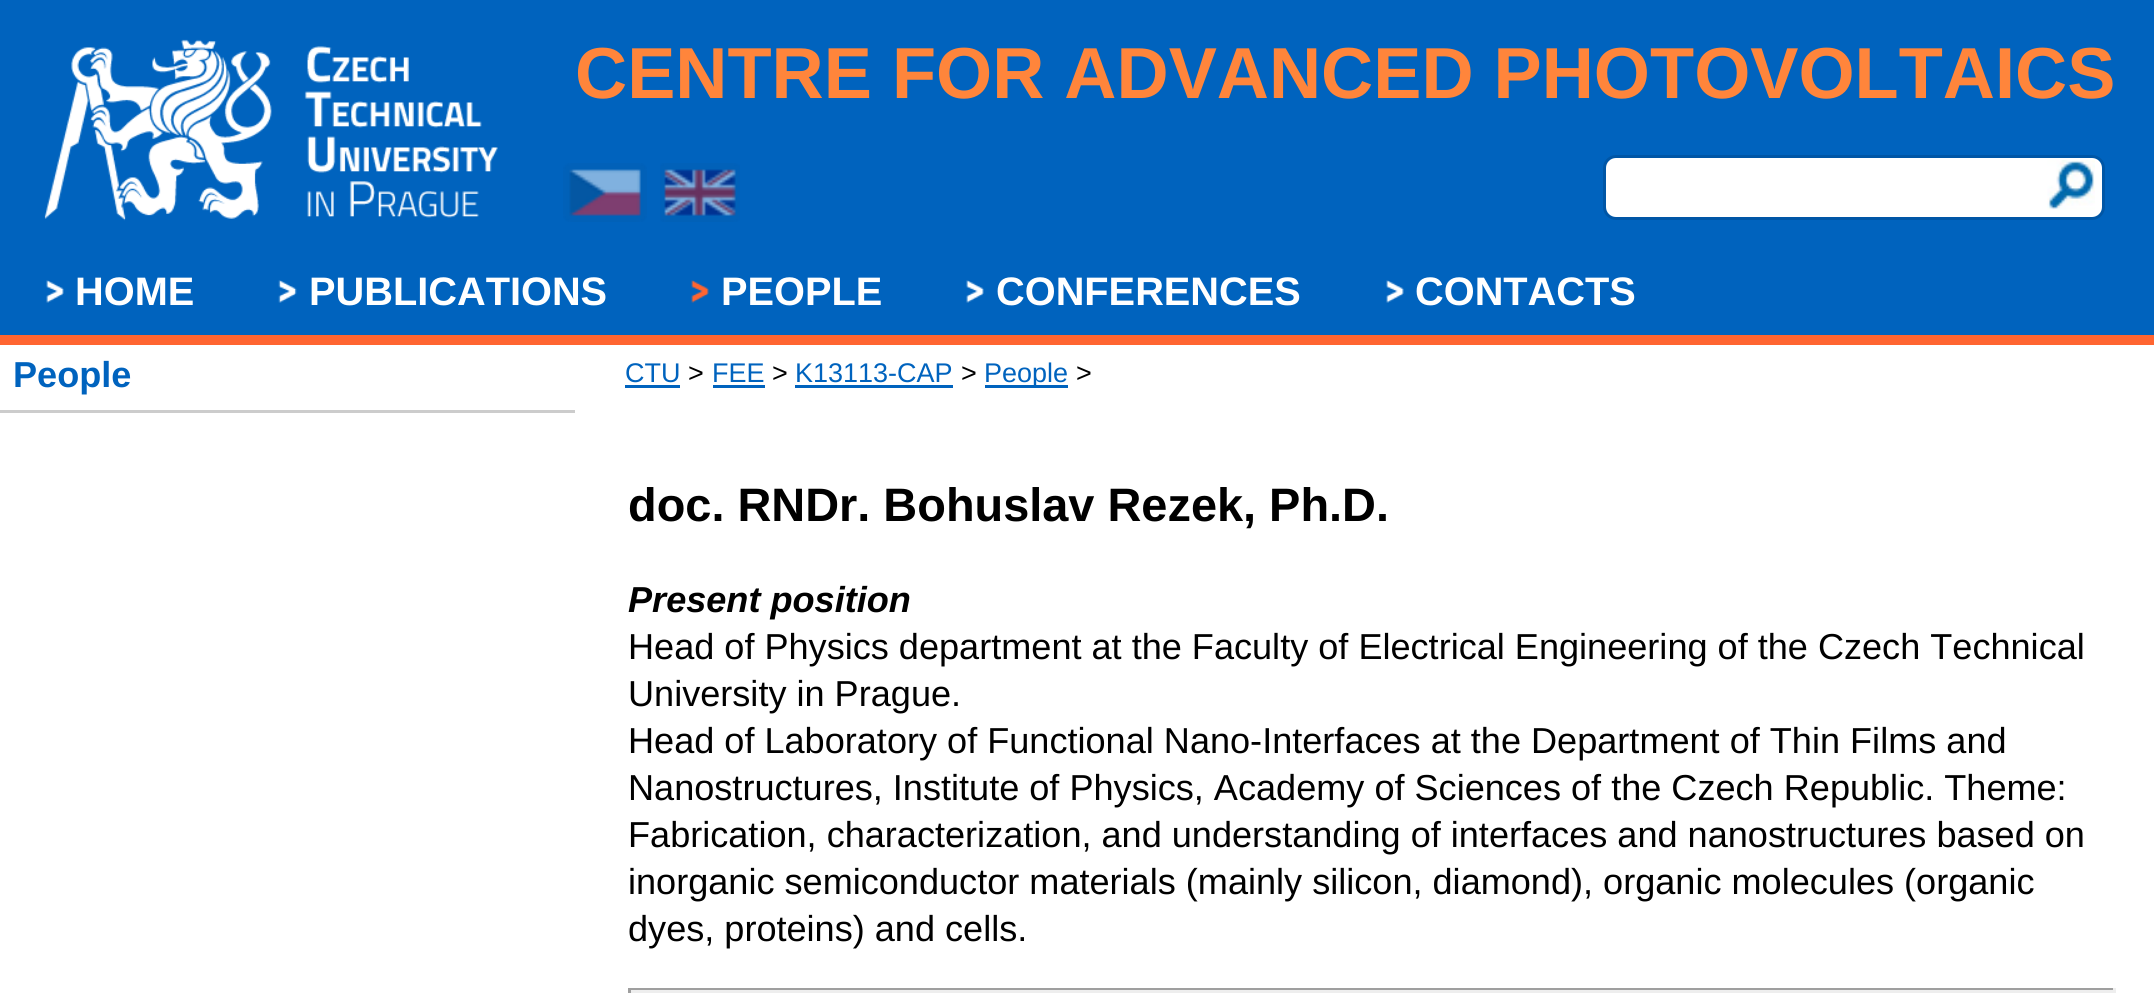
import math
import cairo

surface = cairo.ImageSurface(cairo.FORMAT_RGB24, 2154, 997)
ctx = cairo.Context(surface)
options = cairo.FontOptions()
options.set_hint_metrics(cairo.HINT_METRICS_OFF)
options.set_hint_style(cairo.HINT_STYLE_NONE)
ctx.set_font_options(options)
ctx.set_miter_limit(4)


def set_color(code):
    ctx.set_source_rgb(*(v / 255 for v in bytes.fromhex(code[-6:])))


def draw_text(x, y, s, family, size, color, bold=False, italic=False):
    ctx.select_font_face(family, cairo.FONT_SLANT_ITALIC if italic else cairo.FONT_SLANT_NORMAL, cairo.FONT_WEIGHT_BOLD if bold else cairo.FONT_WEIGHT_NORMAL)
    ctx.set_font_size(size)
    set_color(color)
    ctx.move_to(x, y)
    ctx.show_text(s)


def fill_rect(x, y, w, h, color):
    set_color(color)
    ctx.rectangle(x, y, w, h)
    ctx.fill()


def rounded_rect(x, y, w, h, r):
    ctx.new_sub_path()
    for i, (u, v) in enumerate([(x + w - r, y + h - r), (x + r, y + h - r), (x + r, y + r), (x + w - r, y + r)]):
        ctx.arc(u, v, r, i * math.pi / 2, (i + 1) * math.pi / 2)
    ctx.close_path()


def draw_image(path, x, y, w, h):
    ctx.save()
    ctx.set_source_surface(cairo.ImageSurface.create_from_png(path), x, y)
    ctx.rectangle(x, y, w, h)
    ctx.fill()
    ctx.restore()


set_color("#ffffff")
ctx.paint()
fill_rect(0, 0, 2154, 335, "#0063be")
fill_rect(0, 335, 2154, 10, "#ff6531")
draw_image("assets/img1.png", 44, 39, 454, 182)
draw_text(575, 98, "CENTRE FOR ADVANCED PHOTOVOLTAICS", "Liberation Sans", 72.2, "#ff853b", bold=True)
draw_image("assets/img2.png", 563, 163, 84, 59)
draw_image("assets/img3.png", 660, 163, 80, 59)
set_color("#ffffff")
rounded_rect(1604.5, 156.5, 499, 62, 11.5)
ctx.fill_preserve()
set_color("#0056a6")
ctx.set_line_width(3)
ctx.stroke()
draw_image("assets/img4.png", 2047, 160, 48, 50)
draw_image("assets/img5.png", 46, 280, 18, 23)
draw_text(75, 305, "HOME", "Liberation Sans", 39.75, "#ffffff", bold=True)
draw_image("assets/img6.png", 278, 280, 19, 23)
draw_text(309, 305, "PUBLICATIONS", "Liberation Sans", 39.75, "#ffffff", bold=True)
draw_image("assets/img7.png", 691, 280, 18, 23)
draw_text(721, 305, "PEOPLE", "Liberation Sans", 39.75, "#ffffff", bold=True)
draw_image("assets/img5.png", 966, 280, 18, 23)
draw_text(996, 305, "CONFERENCES", "Liberation Sans", 39.75, "#ffffff", bold=True)
draw_image("assets/img8.png", 1386, 280, 18, 23)
draw_text(1415, 305, "CONTACTS", "Liberation Sans", 39.75, "#ffffff", bold=True)
fill_rect(0, 410, 575, 3, "#cccccc")
draw_text(13, 387, "People", "Liberation Sans", 36.1, "#0063be", bold=True)
draw_text(625, 382, "CTU", "Liberation Sans", 27, "#0063be")
fill_rect(625, 385, 55, 3, "#0063be")
draw_text(688, 382, ">", "Liberation Sans", 27, "#000000")
draw_text(712, 382, "FEE", "Liberation Sans", 27, "#0063be")
fill_rect(713, 385, 52, 3, "#0063be")
draw_text(772, 382, ">", "Liberation Sans", 27, "#000000")
draw_text(795, 382, "K13113-CAP", "Liberation Sans", 27, "#0063be")
fill_rect(795, 385, 158, 3, "#0063be")
draw_text(961, 382, ">", "Liberation Sans", 27, "#000000")
fill_rect(985, 385, 83, 3, "#0063be")
draw_text(984, 382, "People", "Liberation Sans", 27, "#0063be")
draw_text(1076, 382, ">", "Liberation Sans", 27, "#000000")
draw_text(628, 521, "doc. RNDr. Bohuslav Rezek, Ph.D.", "Liberation Sans", 46.9, "#000000", bold=True)
draw_text(628, 612, "Present position", "Liberation Sans", 36.1, "#000000", bold=True, italic=True)
draw_text(628, 659, "Head of Physics department at the Faculty of Electrical Engineering of the Czech Technical", "Liberation Sans", 36.1, "#000000")
draw_text(628, 706, "University in Prague.", "Liberation Sans", 36.1, "#000000")
draw_text(628, 753, "Head of Laboratory of Functional Nano-Interfaces at the Department of Thin Films and", "Liberation Sans", 36.1, "#000000")
draw_text(628, 800, "Nanostructures, Institute of Physics, Academy of Sciences of the Czech Republic. Theme:", "Liberation Sans", 36.1, "#000000")
draw_text(628, 847, "Fabrication, characterization, and understanding of interfaces and nanostructures based on", "Liberation Sans", 36.1, "#000000")
draw_text(628, 894, "inorganic semiconductor materials (mainly silicon, diamond), organic molecules (organic", "Liberation Sans", 36.1, "#000000")
draw_text(628, 941, "dyes, proteins) and cells.", "Liberation Sans", 36.1, "#000000")
fill_rect(628, 988, 1487, 2, "#9f9f9f")
fill_rect(2113, 988, 3, 5, "#eeeeee")
fill_rect(628, 990, 1487, 3, "#eeeeee")
fill_rect(628, 988, 3, 5, "#9f9f9f")
surface.write_to_png("output.png")
